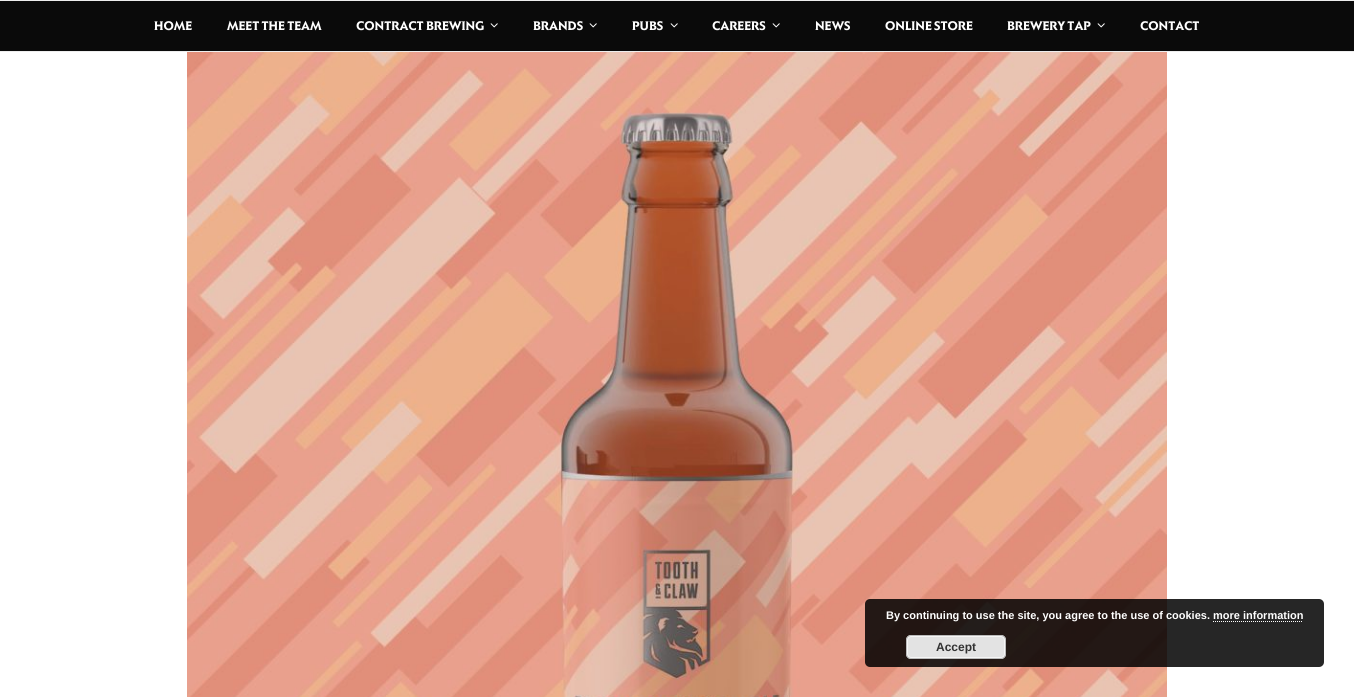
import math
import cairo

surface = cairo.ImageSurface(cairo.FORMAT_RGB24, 1354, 697)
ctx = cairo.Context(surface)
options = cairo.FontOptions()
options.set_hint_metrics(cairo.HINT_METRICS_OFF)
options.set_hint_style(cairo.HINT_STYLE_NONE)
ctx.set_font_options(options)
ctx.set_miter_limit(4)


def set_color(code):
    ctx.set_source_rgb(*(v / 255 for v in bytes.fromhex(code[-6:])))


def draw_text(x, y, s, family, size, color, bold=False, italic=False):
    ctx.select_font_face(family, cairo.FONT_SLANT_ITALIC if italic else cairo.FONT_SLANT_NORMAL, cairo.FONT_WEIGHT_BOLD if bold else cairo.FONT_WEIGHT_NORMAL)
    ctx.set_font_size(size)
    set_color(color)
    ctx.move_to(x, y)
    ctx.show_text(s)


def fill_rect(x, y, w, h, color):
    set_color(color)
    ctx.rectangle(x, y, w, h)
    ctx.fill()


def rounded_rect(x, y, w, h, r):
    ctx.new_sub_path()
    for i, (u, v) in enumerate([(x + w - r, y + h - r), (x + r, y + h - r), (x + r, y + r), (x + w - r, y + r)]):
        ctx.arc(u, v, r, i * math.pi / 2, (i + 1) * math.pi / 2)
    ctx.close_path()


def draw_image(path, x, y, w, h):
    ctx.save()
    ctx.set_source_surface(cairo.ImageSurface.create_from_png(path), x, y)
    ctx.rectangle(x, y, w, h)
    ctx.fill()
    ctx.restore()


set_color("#ffffff")
ctx.paint()
fill_rect(0, 1, 1354, 50, "#0a0a0a")
fill_rect(0, 0, 1354, 1, "#eeeeee")
fill_rect(0, 51, 1354, 1, "#eeeeee")
draw_text(154, 30, "HOME", "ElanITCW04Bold", 13, "#ffffff", bold=True)
draw_text(227, 30, "MEET THE TEAM", "ElanITCW04Bold", 13, "#ffffff", bold=True)
draw_text(356, 30, "CONTRACT BREWING", "ElanITCW04Bold", 13, "#ffffff", bold=True)
draw_image("assets/img1.png", 490, 23, 8, 5)
draw_text(533, 30, "BRANDS", "ElanITCW04Bold", 13, "#ffffff", bold=True)
draw_image("assets/img1.png", 589, 23, 8, 5)
draw_text(632, 30, "PUBS", "ElanITCW04Bold", 13, "#ffffff", bold=True)
draw_image("assets/img1.png", 670, 23, 8, 5)
draw_text(712, 30, "CAREERS", "ElanITCW04Bold", 13, "#ffffff", bold=True)
draw_image("assets/img1.png", 772, 23, 8, 5)
draw_text(815, 30, "NEWS", "ElanITCW04Bold", 13, "#ffffff", bold=True)
draw_text(885, 30, "ONLINE STORE", "ElanITCW04Bold", 13, "#ffffff", bold=True)
draw_text(1007, 30, "BREWERY TAP", "ElanITCW04Bold", 13, "#ffffff", bold=True)
draw_image("assets/img1.png", 1097, 23, 8, 5)
draw_text(1140, 30, "CONTACT", "ElanITCW04Bold", 13, "#ffffff", bold=True)
draw_image("assets/img2.png", 187, 52, 980, 645)
ctx.set_source_rgba(0, 0, 0, 0.85)
rounded_rect(865, 599, 459, 68, 5)
ctx.fill()
draw_text(886, 619, "By continuing to use the site, you agree to the use of cookies. more information", "Liberation Sans", 11, "#ffffff", bold=True)
ctx.new_path()
ctx.move_to(1213, 621.5)
ctx.line_to(1303, 621.5)
ctx.set_line_width(1)
ctx.set_dash([1, 1])
ctx.stroke()
set_color("#e3e3e3")
rounded_rect(906, 635, 100, 24, 5)
ctx.fill()
rounded_rect(907.5, 636.5, 97, 21, 3.5)
set_color("#f6f6f6")
ctx.set_dash([])
ctx.stroke()
rounded_rect(906.5, 635.5, 99, 23, 4.5)
set_color("#bbbbbb")
ctx.stroke()
draw_text(936, 651, "Accept", "Liberation Sans", 12, "#333333", bold=True)
surface.write_to_png("output.png")
